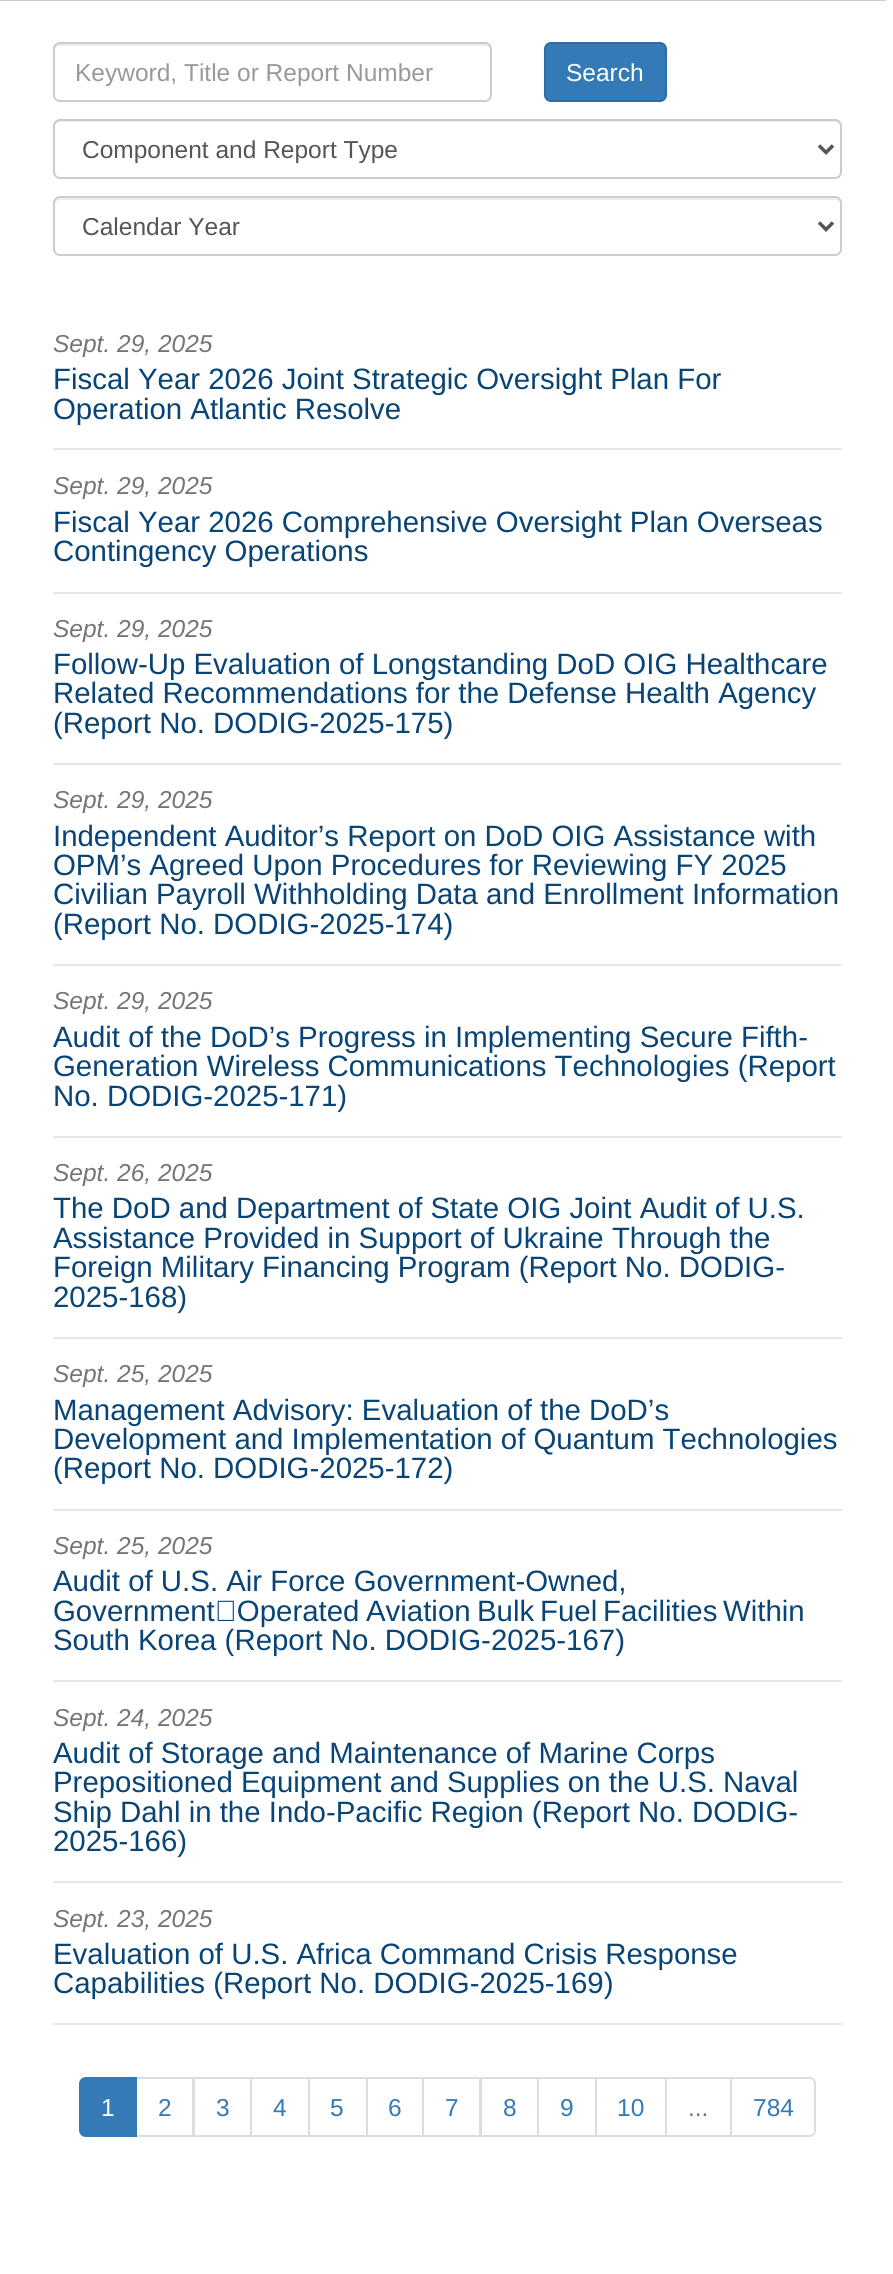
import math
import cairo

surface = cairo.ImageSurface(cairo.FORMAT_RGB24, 893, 2274)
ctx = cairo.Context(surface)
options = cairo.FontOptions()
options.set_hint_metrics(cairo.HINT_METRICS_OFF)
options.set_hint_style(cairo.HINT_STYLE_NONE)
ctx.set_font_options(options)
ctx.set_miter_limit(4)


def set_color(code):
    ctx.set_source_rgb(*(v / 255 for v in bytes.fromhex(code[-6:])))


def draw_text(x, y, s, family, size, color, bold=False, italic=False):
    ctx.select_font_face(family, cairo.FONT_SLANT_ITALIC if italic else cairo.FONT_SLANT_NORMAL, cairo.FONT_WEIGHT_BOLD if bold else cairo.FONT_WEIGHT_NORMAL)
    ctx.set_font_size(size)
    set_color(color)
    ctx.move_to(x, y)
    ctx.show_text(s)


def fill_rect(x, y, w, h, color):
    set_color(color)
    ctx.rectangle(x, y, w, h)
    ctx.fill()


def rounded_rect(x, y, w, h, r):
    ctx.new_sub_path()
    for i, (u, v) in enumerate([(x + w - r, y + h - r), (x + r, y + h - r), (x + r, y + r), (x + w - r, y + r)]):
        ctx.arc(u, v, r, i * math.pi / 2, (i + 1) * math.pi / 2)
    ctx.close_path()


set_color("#ffffff")
ctx.paint()
fill_rect(0, 0, 886, 1, "#cccccc")
set_color("#ececec")
ctx.new_path()
ctx.move_to(60, 46)
ctx.line_to(485, 46)
ctx.curve_to(488, 46, 490, 48, 490, 51)
ctx.curve_to(490, 48, 489, 44, 485, 44)
ctx.line_to(59, 44)
ctx.curve_to(55, 44, 54, 48, 54, 51)
ctx.curve_to(54, 48, 57, 46, 60, 46)
ctx.close_path()
ctx.fill()
rounded_rect(54, 43, 437, 58, 6)
set_color("#cccccc")
ctx.stroke()
draw_text(75, 81, "Keyword, Title or Report Number", "Liberation Sans", 24.5, "#999999")
set_color("#337ab7")
rounded_rect(545, 43, 121, 58, 6)
ctx.fill_preserve()
set_color("#2e6da4")
ctx.stroke()
draw_text(566, 81, "Search", "Liberation Sans", 24.5, "#ffffff")
set_color("#ececec")
ctx.new_path()
ctx.move_to(60, 122)
ctx.line_to(835, 122)
ctx.curve_to(838, 122, 840, 125, 840, 128)
ctx.curve_to(840, 125, 839, 121, 835, 121)
ctx.line_to(59, 121)
ctx.curve_to(55, 121, 54, 125, 54, 128)
ctx.curve_to(54, 125, 57, 122, 60, 122)
ctx.close_path()
ctx.fill()
rounded_rect(54, 120, 787, 58, 6)
set_color("#cccccc")
ctx.stroke()
ctx.new_path()
ctx.move_to(819, 145.5)
ctx.line_to(826, 152.5)
ctx.line_to(833, 145.5)
set_color("#555555")
ctx.set_line_width(3.5)
ctx.stroke()
draw_text(82, 158, "Component and Report Type", "Liberation Sans", 24.5, "#555555")
set_color("#ececec")
ctx.new_path()
ctx.move_to(60, 200)
ctx.line_to(835, 200)
ctx.curve_to(838, 200, 840, 202, 840, 205)
ctx.curve_to(840, 202, 839, 198, 835, 198)
ctx.line_to(59, 198)
ctx.curve_to(55, 198, 54, 202, 54, 205)
ctx.curve_to(54, 202, 57, 200, 60, 200)
ctx.close_path()
ctx.fill()
rounded_rect(54, 197, 787, 58, 6)
set_color("#cccccc")
ctx.set_line_width(2)
ctx.stroke()
ctx.new_path()
ctx.move_to(819, 222.5)
ctx.line_to(826, 229.5)
ctx.line_to(833, 222.5)
set_color("#555555")
ctx.set_line_width(3.5)
ctx.stroke()
draw_text(82, 235, "Calendar Year", "Liberation Sans", 24.5, "#555555")
fill_rect(53, 448, 789, 2, "#e7e7e7")
draw_text(53, 352, "Sept. 29, 2025", "Liberation Sans", 24.5, "#757575", italic=True)
draw_text(53, 389, "Fiscal Year 2026 Joint Strategic Oversight Plan For", "Liberation Sans", 29.4, "#084476")
draw_text(53, 419, "Operation Atlantic Resolve", "Liberation Sans", 29.4, "#084476")
fill_rect(53, 592, 789, 2, "#e7e7e7")
draw_text(53, 494, "Sept. 29, 2025", "Liberation Sans", 24.5, "#757575", italic=True)
draw_text(53, 532, "Fiscal Year 2026 Comprehensive Oversight Plan Overseas", "Liberation Sans", 29.4, "#084476")
draw_text(53, 561, "Contingency Operations", "Liberation Sans", 29.4, "#084476")
fill_rect(53, 763, 789, 2, "#e7e7e7")
draw_text(53, 637, "Sept. 29, 2025", "Liberation Sans", 24.5, "#757575", italic=True)
draw_text(53, 674, "Follow-Up Evaluation of Longstanding DoD OIG Healthcare", "Liberation Sans", 29.4, "#084476")
draw_text(53, 703, "Related Recommendations for the Defense Health Agency", "Liberation Sans", 29.4, "#084476")
draw_text(53, 733, "(Report No. DODIG-2025-175)", "Liberation Sans", 29.4, "#084476")
fill_rect(53, 964, 789, 2, "#e7e7e7")
draw_text(53, 808, "Sept. 29, 2025", "Liberation Sans", 24.5, "#757575", italic=True)
draw_text(53, 846, "Independent Auditor’s Report on DoD OIG Assistance with", "Liberation Sans", 29.4, "#084476")
draw_text(53, 875, "OPM’s Agreed Upon Procedures for Reviewing FY 2025", "Liberation Sans", 29.4, "#084476")
draw_text(53, 904, "Civilian Payroll Withholding Data and Enrollment Information", "Liberation Sans", 29.4, "#084476")
draw_text(53, 934, "(Report No. DODIG-2025-174)", "Liberation Sans", 29.4, "#084476")
fill_rect(53, 1136, 789, 2, "#e7e7e7")
draw_text(53, 1009, "Sept. 29, 2025", "Liberation Sans", 24.5, "#757575", italic=True)
draw_text(53, 1047, "Audit of the DoD’s Progress in Implementing Secure Fifth-", "Liberation Sans", 29.4, "#084476")
draw_text(53, 1076, "Generation Wireless Communications Technologies (Report", "Liberation Sans", 29.4, "#084476")
draw_text(53, 1106, "No. DODIG-2025-171)", "Liberation Sans", 29.4, "#084476")
fill_rect(53, 1337, 789, 2, "#e7e7e7")
draw_text(53, 1181, "Sept. 26, 2025", "Liberation Sans", 24.5, "#757575", italic=True)
draw_text(53, 1218, "The DoD and Department of State OIG Joint Audit of U.S.", "Liberation Sans", 29.4, "#084476")
draw_text(53, 1248, "Assistance Provided in Support of Ukraine Through the", "Liberation Sans", 29.4, "#084476")
draw_text(53, 1277, "Foreign Military Financing Program (Report No. DODIG-", "Liberation Sans", 29.4, "#084476")
draw_text(53, 1307, "2025-168)", "Liberation Sans", 29.4, "#084476")
fill_rect(53, 1509, 789, 2, "#e7e7e7")
draw_text(53, 1382, "Sept. 25, 2025", "Liberation Sans", 24.5, "#757575", italic=True)
draw_text(53, 1420, "Management Advisory: Evaluation of the DoD’s", "Liberation Sans", 29.4, "#084476")
draw_text(53, 1449, "Development and Implementation of Quantum Technologies", "Liberation Sans", 29.4, "#084476")
draw_text(53, 1478, "(Report No. DODIG-2025-172)", "Liberation Sans", 29.4, "#084476")
fill_rect(53, 1680, 789, 2, "#e7e7e7")
draw_text(53, 1554, "Sept. 25, 2025", "Liberation Sans", 24.5, "#757575", italic=True)
draw_text(53, 1591, "Audit of U.S. Air Force Government-Owned,", "Liberation Sans", 29.4, "#084476")
draw_text(53, 1621, "Government‑Operated", "Liberation Sans", 29.4, "#084476")
draw_text(366, 1621, "Aviation", "Liberation Sans", 29.4, "#084476")
draw_text(477, 1621, "Bulk", "Liberation Sans", 29.4, "#084476")
draw_text(540, 1621, "Fuel", "Liberation Sans", 29.4, "#084476")
draw_text(603, 1621, "Facilities", "Liberation Sans", 29.4, "#084476")
draw_text(723, 1621, "Within", "Liberation Sans", 29.4, "#084476")
draw_text(53, 1650, "South Korea (Report No. DODIG-2025-167)", "Liberation Sans", 29.4, "#084476")
fill_rect(53, 1881, 789, 2, "#e7e7e7")
draw_text(53, 1726, "Sept. 24, 2025", "Liberation Sans", 24.5, "#757575", italic=True)
draw_text(53, 1763, "Audit of Storage and Maintenance of Marine Corps", "Liberation Sans", 29.4, "#084476")
draw_text(53, 1792, "Prepositioned Equipment and Supplies on the U.S. Naval", "Liberation Sans", 29.4, "#084476")
draw_text(53, 1822, "Ship Dahl in the Indo-Pacific Region (Report No. DODIG-", "Liberation Sans", 29.4, "#084476")
draw_text(53, 1851, "2025-166)", "Liberation Sans", 29.4, "#084476")
fill_rect(53, 2023, 789, 2, "#e7e7e7")
draw_text(53, 1927, "Sept. 23, 2025", "Liberation Sans", 24.5, "#757575", italic=True)
draw_text(53, 1964, "Evaluation of U.S. Africa Command Crisis Response", "Liberation Sans", 29.4, "#084476")
draw_text(53, 1993, "Capabilities (Report No. DODIG-2025-169)", "Liberation Sans", 29.4, "#084476")
ctx.rectangle(136, 2078, 57, 58)
set_color("#dddddd")
ctx.set_line_width(2)
ctx.stroke()
set_color("#337ab7")
ctx.new_path()
ctx.move_to(86, 2078)
ctx.line_to(136, 2078)
ctx.line_to(136, 2136)
ctx.line_to(86, 2136)
ctx.curve_to(82.5, 2136, 80, 2133.5, 80, 2130)
ctx.line_to(80, 2084)
ctx.curve_to(80, 2080.5, 82.5, 2078, 86, 2078)
ctx.close_path()
ctx.fill_preserve()
ctx.stroke()
draw_text(101, 2116, "1", "Liberation Sans", 24.5, "#ffffff")
draw_text(158, 2116, "2", "Liberation Sans", 24.5, "#337ab7")
ctx.rectangle(194, 2078, 57, 58)
set_color("#dddddd")
ctx.stroke()
draw_text(216, 2116, "3", "Liberation Sans", 24.5, "#337ab7")
ctx.rectangle(251, 2078, 58, 58)
set_color("#dddddd")
ctx.stroke()
draw_text(273, 2116, "4", "Liberation Sans", 24.5, "#337ab7")
ctx.rectangle(309, 2078, 58, 58)
set_color("#dddddd")
ctx.stroke()
draw_text(330, 2116, "5", "Liberation Sans", 24.5, "#337ab7")
ctx.rectangle(367, 2078, 56, 58)
set_color("#dddddd")
ctx.stroke()
draw_text(388, 2116, "6", "Liberation Sans", 24.5, "#337ab7")
ctx.rectangle(423, 2078, 57, 58)
set_color("#dddddd")
ctx.stroke()
draw_text(445, 2116, "7", "Liberation Sans", 24.5, "#337ab7")
ctx.rectangle(481, 2078, 57, 58)
set_color("#dddddd")
ctx.stroke()
draw_text(503, 2116, "8", "Liberation Sans", 24.5, "#337ab7")
ctx.rectangle(538, 2078, 58, 58)
set_color("#dddddd")
ctx.stroke()
draw_text(560, 2116, "9", "Liberation Sans", 24.5, "#337ab7")
ctx.rectangle(596, 2078, 70, 58)
set_color("#dddddd")
ctx.stroke()
draw_text(617, 2116, "10", "Liberation Sans", 24.5, "#337ab7")
ctx.rectangle(666, 2078, 65, 58)
set_color("#dddddd")
ctx.stroke()
draw_text(688, 2116, "...", "Liberation Sans", 24.5, "#757575")
set_color("#ffffff")
ctx.new_path()
ctx.move_to(731, 2078)
ctx.line_to(809, 2078)
ctx.curve_to(812.5, 2078, 815, 2080.5, 815, 2084)
ctx.line_to(815, 2130)
ctx.curve_to(815, 2133.5, 812.5, 2136, 809, 2136)
ctx.line_to(731, 2136)
ctx.close_path()
ctx.fill_preserve()
set_color("#dddddd")
ctx.stroke()
draw_text(753, 2116, "784", "Liberation Sans", 24.5, "#337ab7")
surface.write_to_png("output.png")
